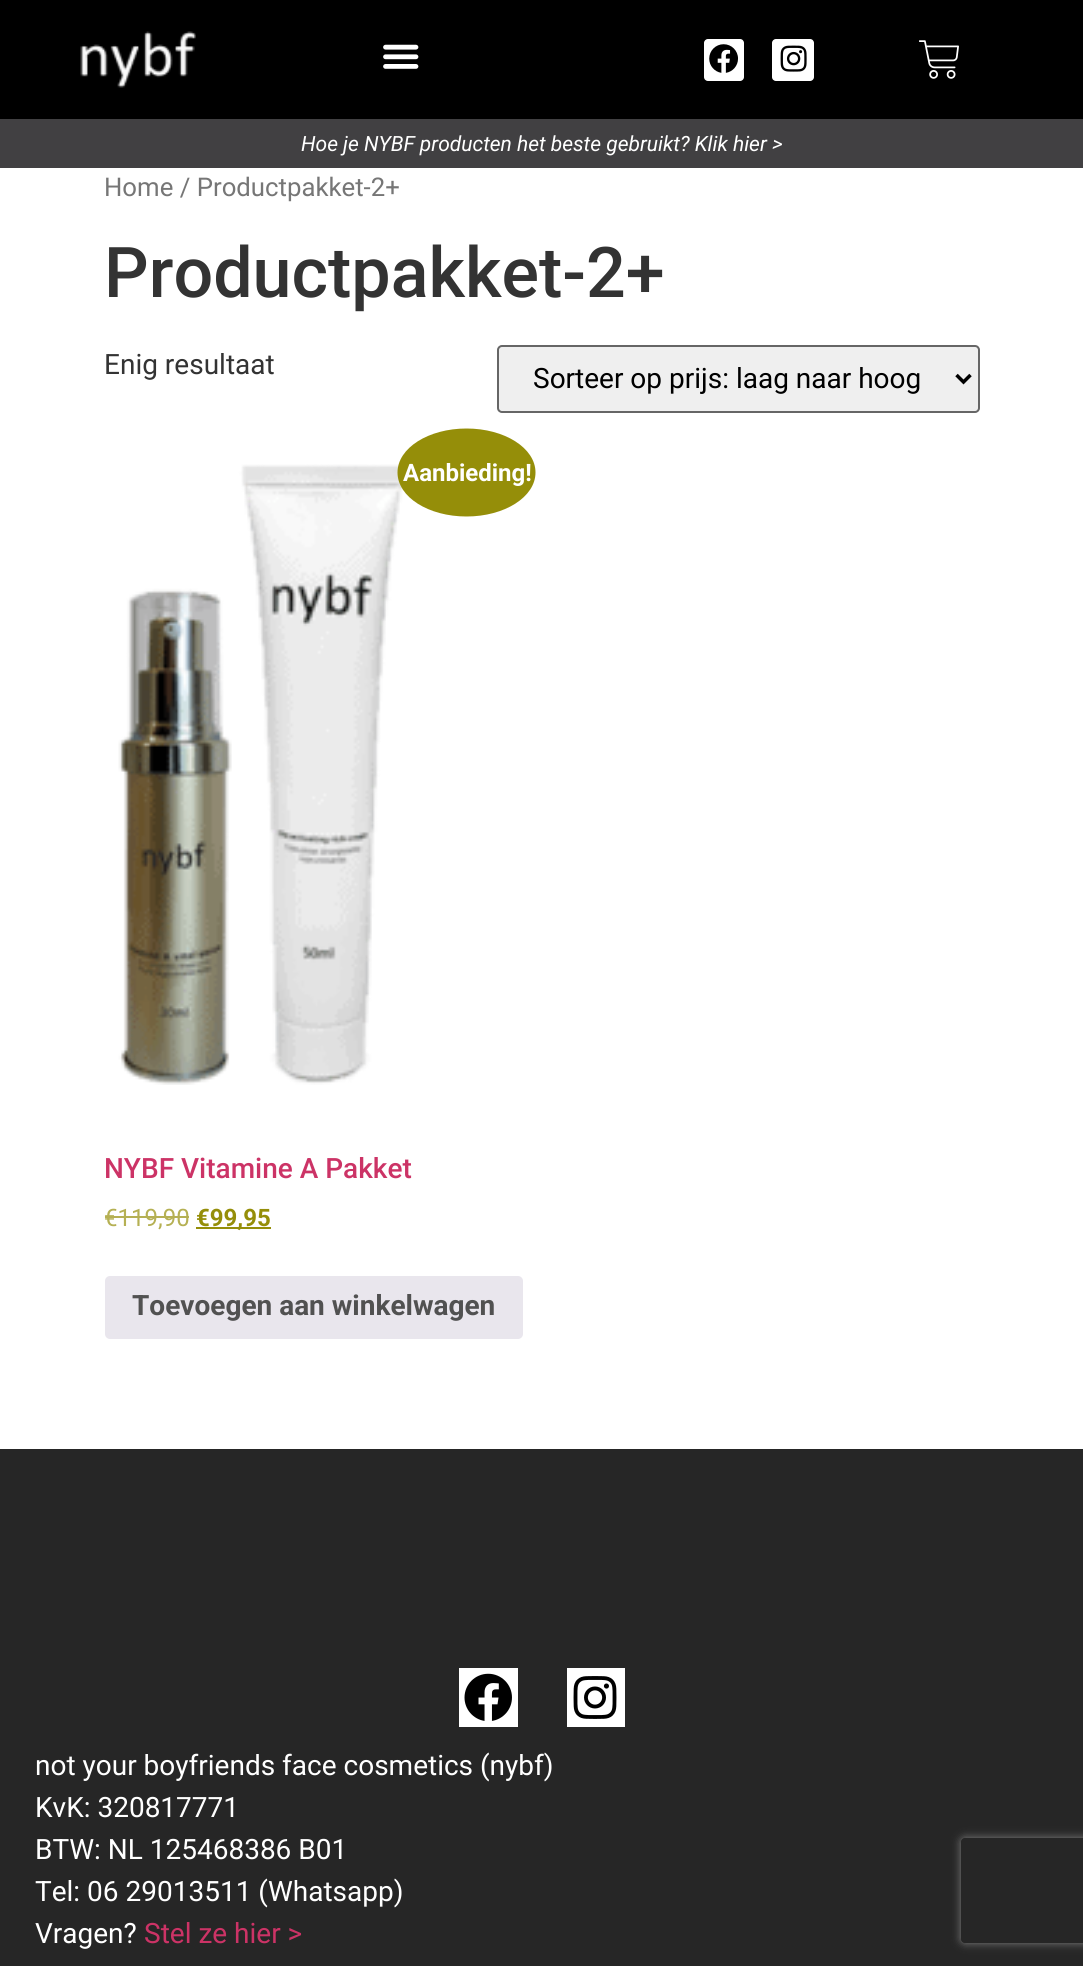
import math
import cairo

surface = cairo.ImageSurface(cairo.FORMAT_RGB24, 1083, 1966)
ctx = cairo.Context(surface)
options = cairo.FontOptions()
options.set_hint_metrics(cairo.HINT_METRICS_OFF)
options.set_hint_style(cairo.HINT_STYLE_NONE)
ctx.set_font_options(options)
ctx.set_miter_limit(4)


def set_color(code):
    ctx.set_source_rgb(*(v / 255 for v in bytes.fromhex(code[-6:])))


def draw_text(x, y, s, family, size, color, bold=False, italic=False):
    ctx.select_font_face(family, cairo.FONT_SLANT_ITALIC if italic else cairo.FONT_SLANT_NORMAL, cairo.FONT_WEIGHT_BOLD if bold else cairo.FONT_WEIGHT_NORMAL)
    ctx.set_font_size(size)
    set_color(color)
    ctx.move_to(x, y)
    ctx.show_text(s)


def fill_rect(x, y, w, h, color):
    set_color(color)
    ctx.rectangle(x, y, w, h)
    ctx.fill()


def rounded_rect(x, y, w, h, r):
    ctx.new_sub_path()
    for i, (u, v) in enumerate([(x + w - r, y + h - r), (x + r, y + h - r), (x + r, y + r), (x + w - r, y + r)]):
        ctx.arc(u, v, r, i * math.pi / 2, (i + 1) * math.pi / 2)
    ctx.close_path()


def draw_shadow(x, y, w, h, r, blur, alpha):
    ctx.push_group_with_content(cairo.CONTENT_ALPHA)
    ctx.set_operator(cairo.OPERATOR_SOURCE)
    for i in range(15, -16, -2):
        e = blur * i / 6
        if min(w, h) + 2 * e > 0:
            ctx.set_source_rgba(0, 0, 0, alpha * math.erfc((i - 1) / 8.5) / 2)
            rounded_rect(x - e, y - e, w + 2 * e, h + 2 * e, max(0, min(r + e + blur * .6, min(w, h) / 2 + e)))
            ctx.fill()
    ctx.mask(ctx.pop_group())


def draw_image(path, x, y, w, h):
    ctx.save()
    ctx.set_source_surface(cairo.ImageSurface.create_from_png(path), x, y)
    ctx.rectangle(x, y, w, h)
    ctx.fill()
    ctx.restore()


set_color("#ffffff")
ctx.paint()
fill_rect(0, 0, 1083, 119, "#000000")
draw_image("assets/img1.png", 80, 31, 116, 57)
draw_image("assets/img2.png", 383, 44, 36, 25)
set_color("#ffffff")
rounded_rect(704, 39, 40, 42, 4)
ctx.fill()
draw_image("assets/img3.png", 709, 44, 29, 29)
rounded_rect(772, 39, 42, 42, 4)
ctx.fill()
draw_image("assets/img4.png", 780, 45, 27, 27)
draw_image("assets/img5.png", 919, 40, 40, 39)
fill_rect(0, 119, 1083, 49, "#414042")
draw_text(301, 151, "Hoe je NYBF producten het beste gebruikt? Klik hier >", "Roboto", 21, "#ffffff", italic=True)
draw_text(104, 196, "Home / Productpakket-2+", "Roboto", 25.75, "#767676")
draw_text(104, 297, "Productpakket-2+", "Roboto Medium", 70, "#333333")
draw_text(104, 374, "Enig resultaat", "Roboto", 28, "#333333")
set_color("#efefef")
rounded_rect(498, 346, 481, 66, 4)
ctx.fill_preserve()
set_color("#666666")
ctx.stroke()
ctx.new_path()
ctx.move_to(956.5, 375)
ctx.line_to(963.5, 382)
ctx.line_to(970.5, 375)
set_color("#000000")
ctx.set_line_width(3.5)
ctx.stroke()
draw_text(533, 388, "Sorteer op prijs: laag naar hoog", "Roboto", 28, "#000000")
draw_image("assets/img6.png", 118, 464, 285, 621)
set_color("#958e09")
ctx.new_path()
ctx.move_to(466.5, 428.5)
ctx.curve_to(504.5, 428.5, 535.5, 448, 535.5, 472.5)
ctx.curve_to(535.5, 497, 504.5, 516.5, 466.5, 516.5)
ctx.curve_to(428.5, 516.5, 397.5, 497, 397.5, 472.5)
ctx.curve_to(397.5, 448, 428.5, 428.5, 466.5, 428.5)
ctx.close_path()
ctx.fill()
draw_text(403, 481, "Aanbieding!", "Roboto", 24, "#ffffff", bold=True)
draw_text(104, 1178, "NYBF Vitamine A Pakket", "Roboto Medium", 28, "#cc3366")
draw_text(104, 1226, "€119,90", "Roboto", 24, "#b5b053")
fill_rect(105, 1216, 84, 2, "#b5b053")
fill_rect(196, 1227, 75, 2, "#958e09")
draw_text(196, 1226, "€99,95", "Roboto", 24, "#958e09", bold=True)
set_color("#e9e6ed")
rounded_rect(105, 1276, 418, 63, 5)
ctx.fill()
draw_text(132, 1315, "Toevoegen aan winkelwagen", "Roboto", 28, "#515151", bold=True)
fill_rect(0, 1449, 1083, 517, "#262626")
fill_rect(459, 1668, 59, 59, "#ffffff")
draw_image("assets/img7.png", 464, 1673, 48, 48)
fill_rect(567, 1668, 58, 59, "#ffffff")
draw_image("assets/img8.png", 573, 1676, 44, 43)
draw_text(35, 1775, "not your boyfriends face cosmetics (nybf)", "Roboto", 28, "#ffffff")
draw_text(35, 1817, "KvK: 320817771", "Roboto", 28, "#ffffff")
draw_text(35, 1859, "BTW: NL 125468386 B01", "Roboto", 28, "#ffffff")
draw_text(35, 1901, "Tel: 06 29013511 (Whatsapp)", "Roboto", 28, "#ffffff")
draw_text(35, 1943, "Vragen?", "Roboto", 28, "#ffffff")
draw_text(144, 1943, "Stel ze hier >", "Roboto", 28, "#cc3366")
ctx.save()
ctx.set_fill_rule(cairo.FILL_RULE_EVEN_ODD)
ctx.new_path()
ctx.move_to(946, 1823)
ctx.line_to(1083, 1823)
ctx.line_to(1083, 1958)
ctx.line_to(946, 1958)
ctx.close_path()
ctx.move_to(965, 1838)
ctx.line_to(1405, 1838)
ctx.curve_to(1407, 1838, 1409, 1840, 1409, 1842)
ctx.line_to(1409, 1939)
ctx.curve_to(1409, 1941, 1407, 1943, 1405, 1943)
ctx.line_to(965, 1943)
ctx.curve_to(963, 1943, 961, 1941, 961, 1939)
ctx.line_to(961, 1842)
ctx.curve_to(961, 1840, 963, 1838, 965, 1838)
ctx.close_path()
ctx.clip()
set_color("#808080")
draw_shadow(961, 1838, 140, 105, 4, 4.5, 1)
ctx.restore()
surface.write_to_png("output.png")
